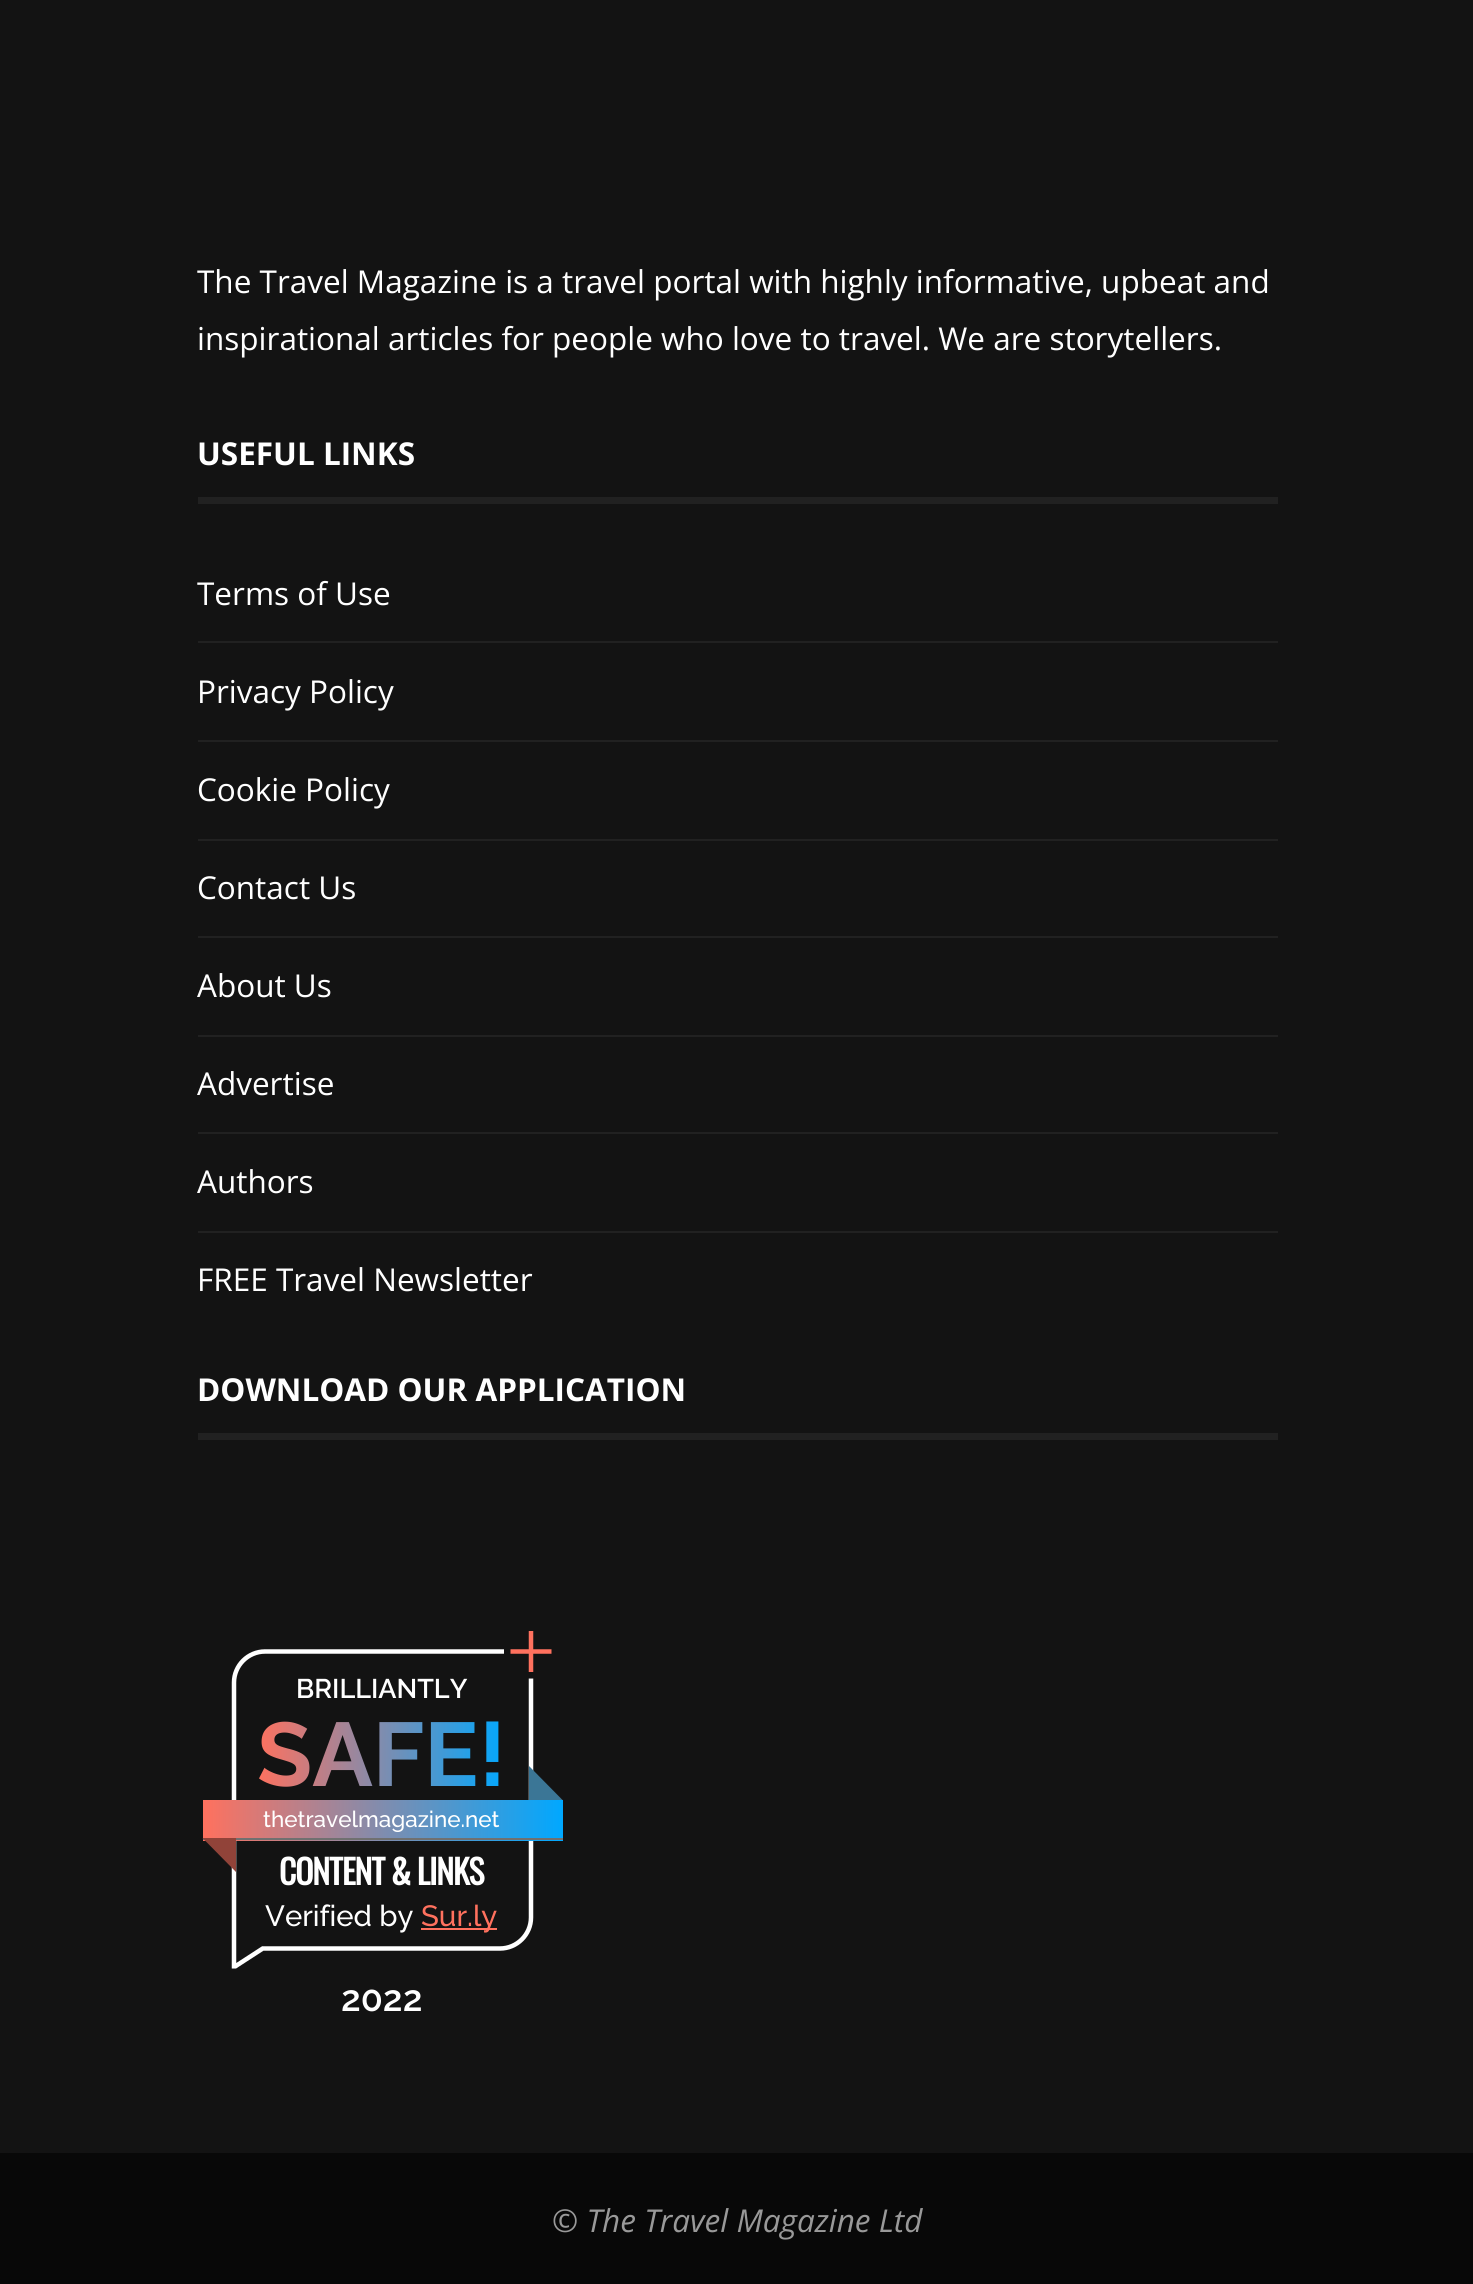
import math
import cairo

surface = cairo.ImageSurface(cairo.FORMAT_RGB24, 1473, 2284)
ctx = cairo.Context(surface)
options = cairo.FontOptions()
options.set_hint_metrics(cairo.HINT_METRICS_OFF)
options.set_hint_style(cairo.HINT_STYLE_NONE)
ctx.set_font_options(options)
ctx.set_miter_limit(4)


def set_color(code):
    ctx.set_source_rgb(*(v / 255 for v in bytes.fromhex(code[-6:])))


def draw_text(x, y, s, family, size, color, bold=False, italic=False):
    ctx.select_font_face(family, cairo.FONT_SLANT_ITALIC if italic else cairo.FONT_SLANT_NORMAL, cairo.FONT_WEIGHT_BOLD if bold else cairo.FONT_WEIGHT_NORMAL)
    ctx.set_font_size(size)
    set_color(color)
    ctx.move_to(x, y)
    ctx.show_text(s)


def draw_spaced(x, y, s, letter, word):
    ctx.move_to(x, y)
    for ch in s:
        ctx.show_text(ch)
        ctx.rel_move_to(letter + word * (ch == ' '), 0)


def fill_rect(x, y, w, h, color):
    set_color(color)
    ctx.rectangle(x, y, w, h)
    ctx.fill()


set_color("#131313")
ctx.paint()
draw_text(197, 293, "The Travel Magazine is a travel portal with highly informative, upbeat and", "Open Sans", 31.5, "#ffffff")
draw_text(197, 350, "inspirational articles for people who love to travel. We are storytellers.", "Open Sans", 31.5, "#ffffff")
fill_rect(198, 497, 1080, 7, "#212121")
draw_text(197, 465, "USEFUL LINKS", "Open Sans", 31.5, "#ffffff", bold=True)
fill_rect(198, 641, 1080, 2, "#212121")
draw_text(197, 605, "Terms of Use", "Open Sans", 31.5, "#ffffff")
fill_rect(198, 740, 1080, 2, "#212121")
draw_text(197, 703, "Privacy Policy", "Open Sans", 31.5, "#ffffff")
fill_rect(198, 839, 1080, 2, "#212121")
draw_text(197, 801, "Cookie Policy", "Open Sans", 31.5, "#ffffff")
fill_rect(198, 936, 1080, 2, "#212121")
draw_text(197, 899, "Contact Us", "Open Sans", 31.5, "#ffffff")
fill_rect(198, 1035, 1080, 2, "#212121")
draw_text(197, 997, "About Us", "Open Sans", 31.5, "#ffffff")
fill_rect(198, 1132, 1080, 2, "#212121")
draw_text(197, 1095, "Advertise", "Open Sans", 31.5, "#ffffff")
fill_rect(198, 1231, 1080, 2, "#212121")
draw_text(197, 1193, "Authors", "Open Sans", 31.5, "#ffffff")
draw_text(197, 1291, "FREE Travel Newsletter", "Open Sans", 31.5, "#ffffff")
fill_rect(198, 1433, 1080, 7, "#212121")
draw_text(197, 1401, "DOWNLOAD OUR APPLICATION", "Open Sans", 31.5, "#ffffff", bold=True)
ctx.new_path()
ctx.move_to(234, 1682.5)
ctx.curve_to(234, 1665.5, 248, 1651.5, 265, 1651.5)
ctx.move_to(234, 1682.5)
ctx.line_to(234, 1968.5)
ctx.move_to(263.5, 1948)
ctx.line_to(235, 1966.5)
ctx.move_to(262, 1948.5)
ctx.line_to(500, 1948.5)
ctx.move_to(500, 1948.5)
ctx.curve_to(517, 1948.5, 531, 1934.5, 531, 1917.5)
ctx.move_to(531, 1678.5)
ctx.line_to(531, 1917.5)
ctx.move_to(265, 1651.5)
ctx.line_to(504, 1651.5)
ctx.set_line_width(4.5)
ctx.stroke()
ctx.new_path()
ctx.move_to(531, 1672)
ctx.line_to(531, 1631)
ctx.move_to(510.5, 1651.5)
ctx.line_to(551.5, 1651.5)
set_color("#ff715e")
ctx.stroke()
draw_text(296, 1698, "BRILLIANTLY", "Raleway SemiBold", 27, "#ffffff")
ctx.select_font_face("Raleway", cairo.FONT_SLANT_NORMAL, cairo.FONT_WEIGHT_BOLD)
ctx.set_font_size(90)
gradient = cairo.LinearGradient(257, 1754, 506, 1754)
gradient.add_color_stop_rgba(0, 1, 0.443, 0.369, 1)
gradient.add_color_stop_rgba(1, 0, 0.659, 1, 1)
ctx.set_source(gradient)
ctx.move_to(257, 1786)
ctx.show_text("SAFE!")
gradient = cairo.LinearGradient(203, 1819, 563, 1819)
gradient.add_color_stop_rgba(0, 1, 0.443, 0.369, 1)
gradient.add_color_stop_rgba(1, 0, 0.659, 1, 1)
ctx.set_source(gradient)
ctx.rectangle(203, 1800, 360, 41)
ctx.fill()
fill_rect(203, 1838, 360, 2, "#707070")
set_color("#3b7696")
ctx.new_path()
ctx.move_to(529, 1800)
ctx.line_to(529, 1766)
ctx.line_to(562.5, 1800)
ctx.close_path()
ctx.fill()
draw_text(263, 1827, "thetravelmagazine.net", "Raleway Medium", 22.5, "#ffffff")
set_color("#914339")
ctx.new_path()
ctx.move_to(236, 1838)
ctx.line_to(236, 1872)
ctx.line_to(202.5, 1838)
ctx.close_path()
ctx.fill()
ctx.select_font_face("Oswald", cairo.FONT_SLANT_NORMAL, cairo.FONT_WEIGHT_BOLD)
ctx.set_font_size(33.75)
set_color("#ffffff")
draw_spaced(279, 1885, "CONTENT & LINKS", -1.1, 0)
draw_text(265, 1926, "Verified by", "Raleway Medium", 29.25, "#ffffff")
fill_rect(421, 1928, 76, 2, "#ff715e")
draw_text(421, 1926, "Sur.ly", "Raleway Medium", 29.25, "#ff715e")
draw_text(341, 2011, "2022", "Raleway SemiBold", 36, "#ffffff")
fill_rect(0, 2153, 1473, 131, "#080808")
draw_text(552, 2232, "© The Travel Magazine Ltd", "Open Sans", 31.5, "#999999", italic=True)
surface.write_to_png("output.png")
